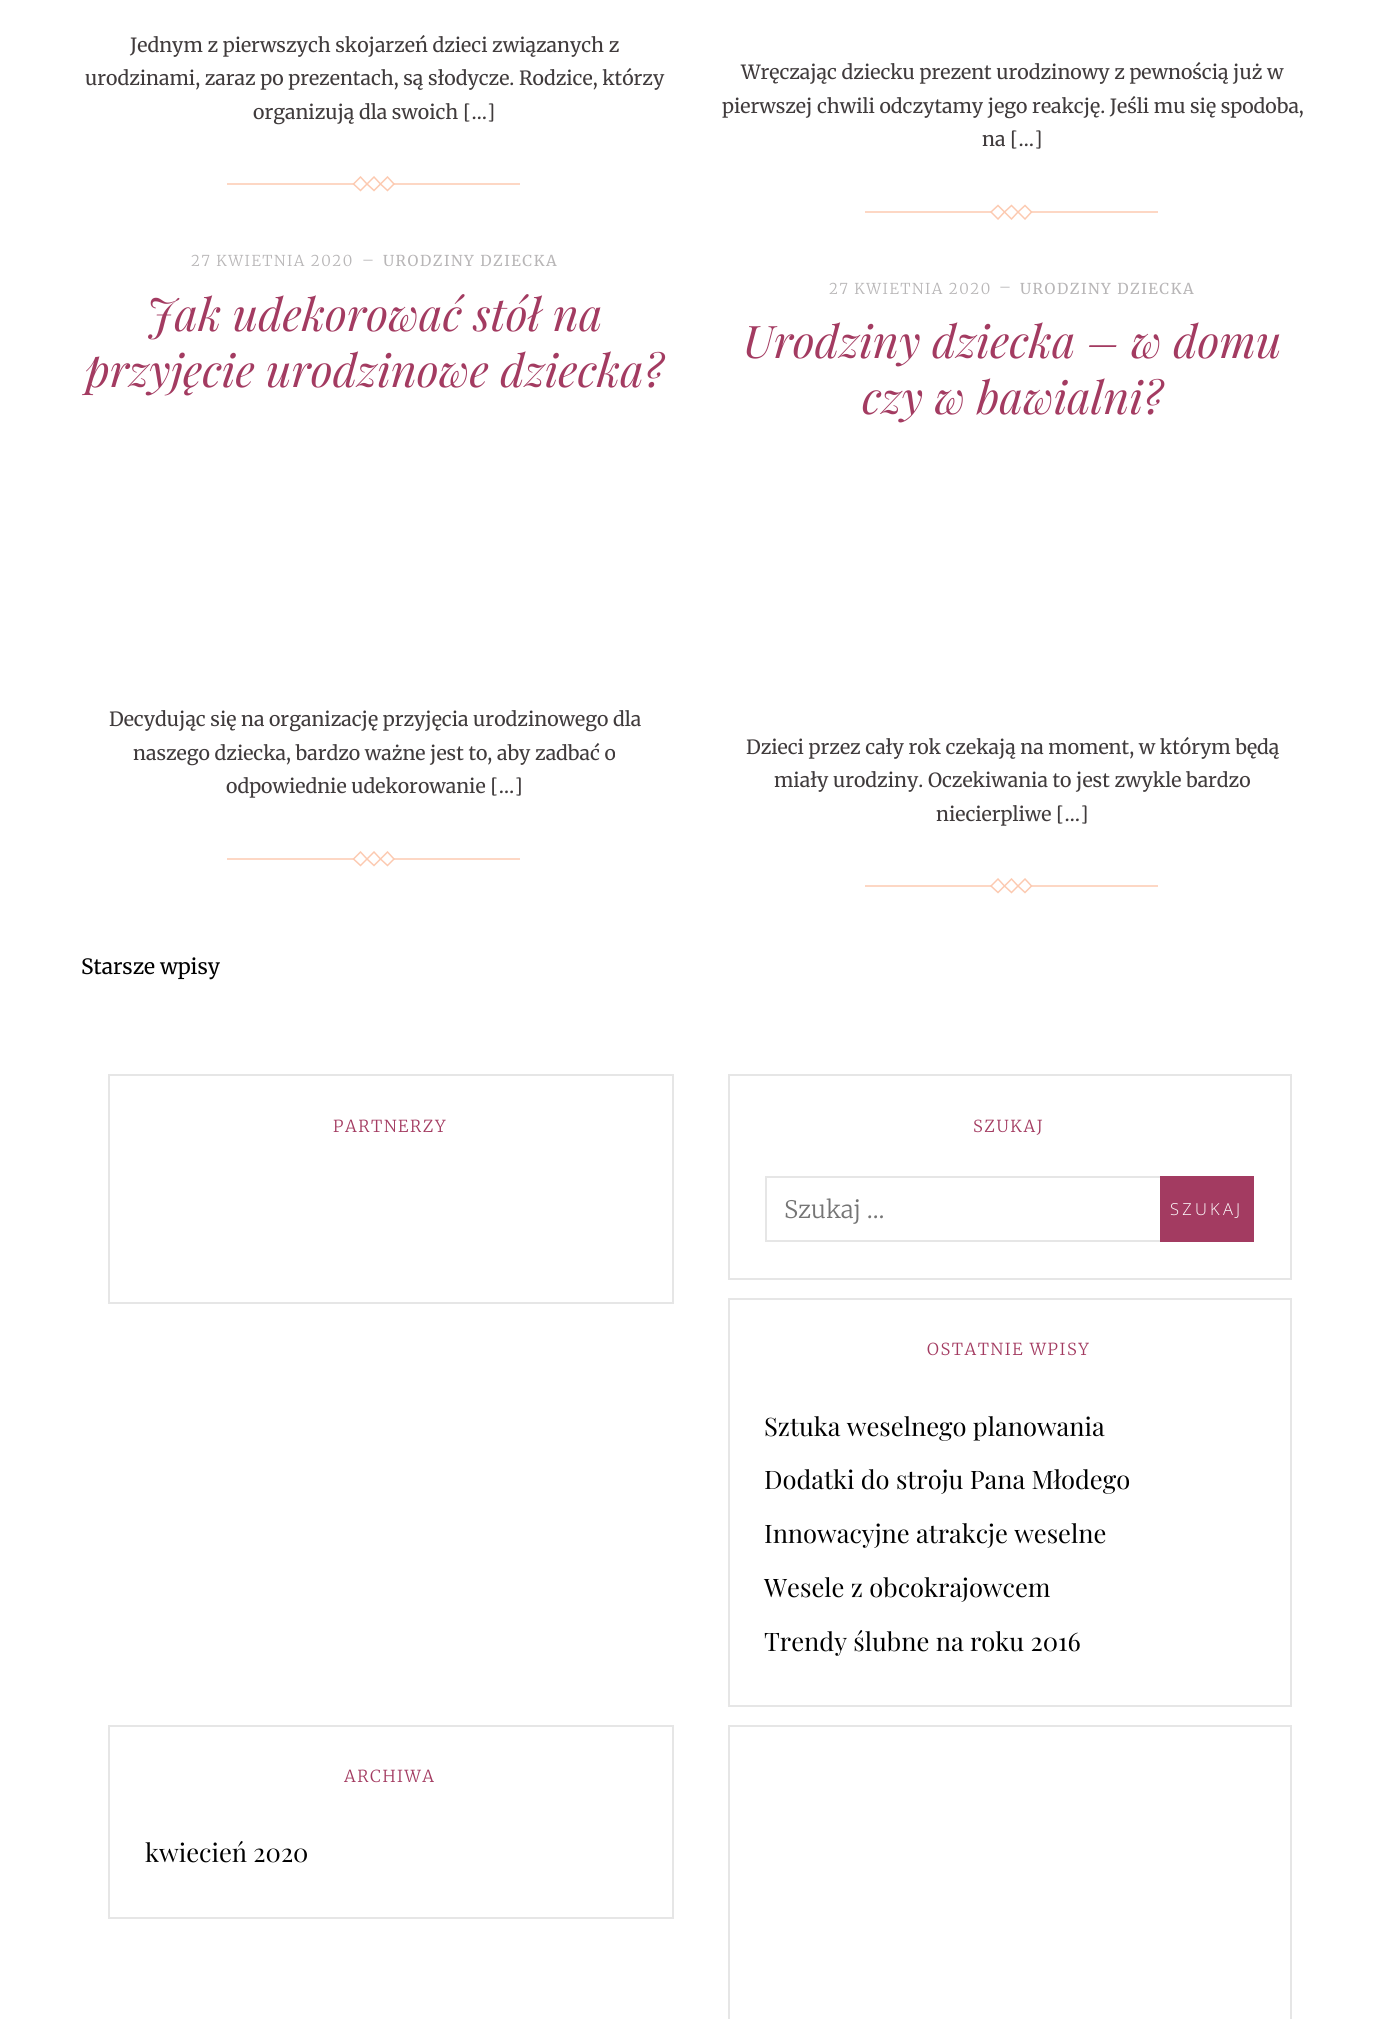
import math
import cairo

surface = cairo.ImageSurface(cairo.FORMAT_RGB24, 1399, 2019)
ctx = cairo.Context(surface)
options = cairo.FontOptions()
options.set_hint_metrics(cairo.HINT_METRICS_OFF)
options.set_hint_style(cairo.HINT_STYLE_NONE)
ctx.set_font_options(options)
ctx.set_miter_limit(4)


def set_color(code):
    ctx.set_source_rgb(*(v / 255 for v in bytes.fromhex(code[-6:])))


def draw_text(x, y, s, family, size, color, bold=False, italic=False):
    ctx.select_font_face(family, cairo.FONT_SLANT_ITALIC if italic else cairo.FONT_SLANT_NORMAL, cairo.FONT_WEIGHT_BOLD if bold else cairo.FONT_WEIGHT_NORMAL)
    ctx.set_font_size(size)
    set_color(color)
    ctx.move_to(x, y)
    ctx.show_text(s)


def draw_spaced(x, y, s, letter, word):
    ctx.move_to(x, y)
    for ch in s:
        ctx.show_text(ch)
        ctx.rel_move_to(letter + word * (ch == ' '), 0)


def fill_rect(x, y, w, h, color):
    set_color(color)
    ctx.rectangle(x, y, w, h)
    ctx.fill()


set_color("#ffffff")
ctx.paint()
draw_text(130, 52, "Jednym z pierwszych skojarzeń dzieci związanych z", "Merriweather", 19.5, "#403b3c")
draw_text(85, 85, "urodzinami, zaraz po prezentach, są słodycze. Rodzice, którzy", "Merriweather", 19.5, "#403b3c")
draw_text(253, 119, "organizują dla swoich […]", "Merriweather", 19.5, "#403b3c")
ctx.new_path()
ctx.move_to(367, 184)
ctx.line_to(374, 177)
ctx.line_to(380.5, 184)
ctx.line_to(374, 190.5)
ctx.close_path()
ctx.move_to(353.5, 184)
ctx.line_to(360.5, 177)
ctx.line_to(367, 184)
ctx.line_to(360.5, 190.5)
ctx.close_path()
ctx.move_to(380.5, 184)
ctx.line_to(387.5, 177)
ctx.line_to(394, 184)
ctx.line_to(387.5, 190.5)
ctx.close_path()
set_color("#fcc9b0")
ctx.set_line_width(1.5)
ctx.stroke()
ctx.set_source_rgba(0.988, 0.788, 0.69, 0.75)
ctx.rectangle(227, 183, 127, 2)
ctx.fill()
ctx.rectangle(394, 183, 126, 2)
ctx.fill()
draw_text(741, 79, "Wręczając dziecku prezent urodzinowy z pewnością już w", "Merriweather", 19.5, "#403b3c")
draw_text(722, 113, "pierwszej chwili odczytamy jego reakcję. Jeśli mu się spodoba,", "Merriweather", 19.5, "#403b3c")
draw_text(982, 146, "na […]", "Merriweather", 19.5, "#403b3c")
ctx.new_path()
ctx.move_to(1004.5, 212)
ctx.line_to(1011.5, 205.5)
ctx.line_to(1018, 212)
ctx.line_to(1011.5, 219)
ctx.close_path()
ctx.move_to(991, 212)
ctx.line_to(998, 205.5)
ctx.line_to(1004.5, 212)
ctx.line_to(998, 219)
ctx.close_path()
ctx.move_to(1018, 212)
ctx.line_to(1025, 205.5)
ctx.line_to(1031.5, 212)
ctx.line_to(1025, 219)
ctx.close_path()
set_color("#fcc9b0")
ctx.stroke()
ctx.set_source_rgba(0.988, 0.788, 0.69, 0.75)
ctx.rectangle(865, 211, 126, 2)
ctx.fill()
ctx.rectangle(1031, 211, 127, 2)
ctx.fill()
ctx.select_font_face("Merriweather Light")
ctx.set_font_size(15)
set_color("#b8b6b7")
draw_spaced(191, 266, "27 KWIETNIA 2020", 1.5, 0)
draw_spaced(362, 265, "–", 1.5, 0)
ctx.select_font_face("Merriweather")
draw_spaced(383, 266, "URODZINY DZIECKA", 1.5, 0)
draw_text(146, 331, "Jak udekorować stół na", "Playfair Display", 45, "#a33b61", italic=True)
draw_text(85, 387, "przyjęcie urodzinowe dziecka?", "Playfair Display", 45, "#a33b61", italic=True)
draw_text(109, 726, "Decydując się na organizację przyjęcia urodzinowego dla", "Merriweather", 19.5, "#403b3c")
draw_text(133, 760, "naszego dziecka, bardzo ważne jest to, aby zadbać o", "Merriweather", 19.5, "#403b3c")
draw_text(226, 793, "odpowiednie udekorowanie […]", "Merriweather", 19.5, "#403b3c")
ctx.new_path()
ctx.move_to(367, 859)
ctx.line_to(374, 852)
ctx.line_to(380.5, 859)
ctx.line_to(374, 865.5)
ctx.close_path()
ctx.move_to(353.5, 859)
ctx.line_to(360.5, 852)
ctx.line_to(367, 859)
ctx.line_to(360.5, 865.5)
ctx.close_path()
ctx.move_to(380.5, 859)
ctx.line_to(387.5, 852)
ctx.line_to(394, 859)
ctx.line_to(387.5, 865.5)
ctx.close_path()
set_color("#fcc9b0")
ctx.stroke()
ctx.set_source_rgba(0.988, 0.788, 0.69, 0.75)
ctx.rectangle(227, 858, 127, 2)
ctx.fill()
ctx.rectangle(394, 858, 126, 2)
ctx.fill()
ctx.select_font_face("Merriweather Light")
ctx.set_font_size(15)
set_color("#b8b6b7")
draw_spaced(829, 294, "27 KWIETNIA 2020", 1.5, 0)
draw_spaced(999, 292, "–", 1.5, 0)
ctx.select_font_face("Merriweather")
draw_spaced(1020, 294, "URODZINY DZIECKA", 1.5, 0)
draw_text(743, 358, "Urodziny dziecka – w domu", "Playfair Display", 45, "#a33b61", italic=True)
draw_text(862, 414, "czy w bawialni?", "Playfair Display", 45, "#a33b61", italic=True)
draw_text(746, 754, "Dzieci przez cały rok czekają na moment, w którym będą", "Merriweather", 19.5, "#403b3c")
draw_text(774, 787, "miały urodziny. Oczekiwania to jest zwykle bardzo", "Merriweather", 19.5, "#403b3c")
draw_text(936, 821, "niecierpliwe […]", "Merriweather", 19.5, "#403b3c")
ctx.new_path()
ctx.move_to(1004.5, 886)
ctx.line_to(1011.5, 879)
ctx.line_to(1018, 886)
ctx.line_to(1011.5, 892.5)
ctx.close_path()
ctx.move_to(991, 886)
ctx.line_to(998, 879)
ctx.line_to(1004.5, 886)
ctx.line_to(998, 892.5)
ctx.close_path()
ctx.move_to(1018, 886)
ctx.line_to(1025, 879)
ctx.line_to(1031.5, 886)
ctx.line_to(1025, 892.5)
ctx.close_path()
set_color("#fcc9b0")
ctx.stroke()
ctx.set_source_rgba(0.988, 0.788, 0.69, 0.75)
ctx.rectangle(865, 885, 126, 2)
ctx.fill()
ctx.rectangle(1031, 885, 127, 2)
ctx.fill()
draw_text(81, 974, "Starsze wpisy", "Merriweather", 21, "#000000")
ctx.rectangle(109, 1075, 564, 228)
set_color("#e6e6e6")
ctx.set_line_width(2)
ctx.stroke()
ctx.select_font_face("Merriweather Light")
ctx.set_font_size(16.5)
set_color("#a33b61")
draw_spaced(333, 1132, "PARTNERZY", 1.6, 0)
ctx.rectangle(729, 1075, 562, 204)
set_color("#e6e6e6")
ctx.stroke()
set_color("#a33b61")
draw_spaced(973, 1132, "SZUKAJ", 1.6, 0)
ctx.rectangle(766, 1177, 487, 64)
set_color("#e6e6e6")
ctx.stroke()
draw_text(784, 1218, "Szukaj …", "Merriweather Light", 24, "#757575")
fill_rect(1160, 1176, 94, 66, "#a33b61")
ctx.select_font_face("Open Sans Light")
ctx.set_font_size(16.5)
set_color("#ffffff")
draw_spaced(1170, 1215, "SZUKAJ", 3.25, 0)
ctx.rectangle(729, 1299, 562, 407)
set_color("#e6e6e6")
ctx.stroke()
ctx.select_font_face("Merriweather Light")
set_color("#a33b61")
draw_spaced(927, 1355, "OSTATNIE WPISY", 1.6, 0)
draw_text(764, 1436, "Sztuka weselnego planowania", "Playfair Display", 25.5, "#000000")
draw_text(764, 1489, "Dodatki do stroju Pana Młodego", "Playfair Display", 25.5, "#000000")
draw_text(764, 1543, "Innowacyjne atrakcje weselne", "Playfair Display", 25.5, "#000000")
draw_text(764, 1597, "Wesele z obcokrajowcem", "Playfair Display", 25.5, "#000000")
draw_text(764, 1651, "Trendy ślubne na roku 2016", "Playfair Display", 25.5, "#000000")
ctx.rectangle(109, 1726, 564, 192)
set_color("#e6e6e6")
ctx.stroke()
ctx.select_font_face("Merriweather Light")
ctx.set_font_size(16.5)
set_color("#a33b61")
draw_spaced(344, 1782, "ARCHIWA", 1.6, 0)
draw_text(145, 1862, "kwiecień 2020", "Playfair Display", 25.5, "#000000")
ctx.rectangle(729, 1726, 562, 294)
set_color("#e6e6e6")
ctx.stroke()
surface.write_to_png("output.png")
